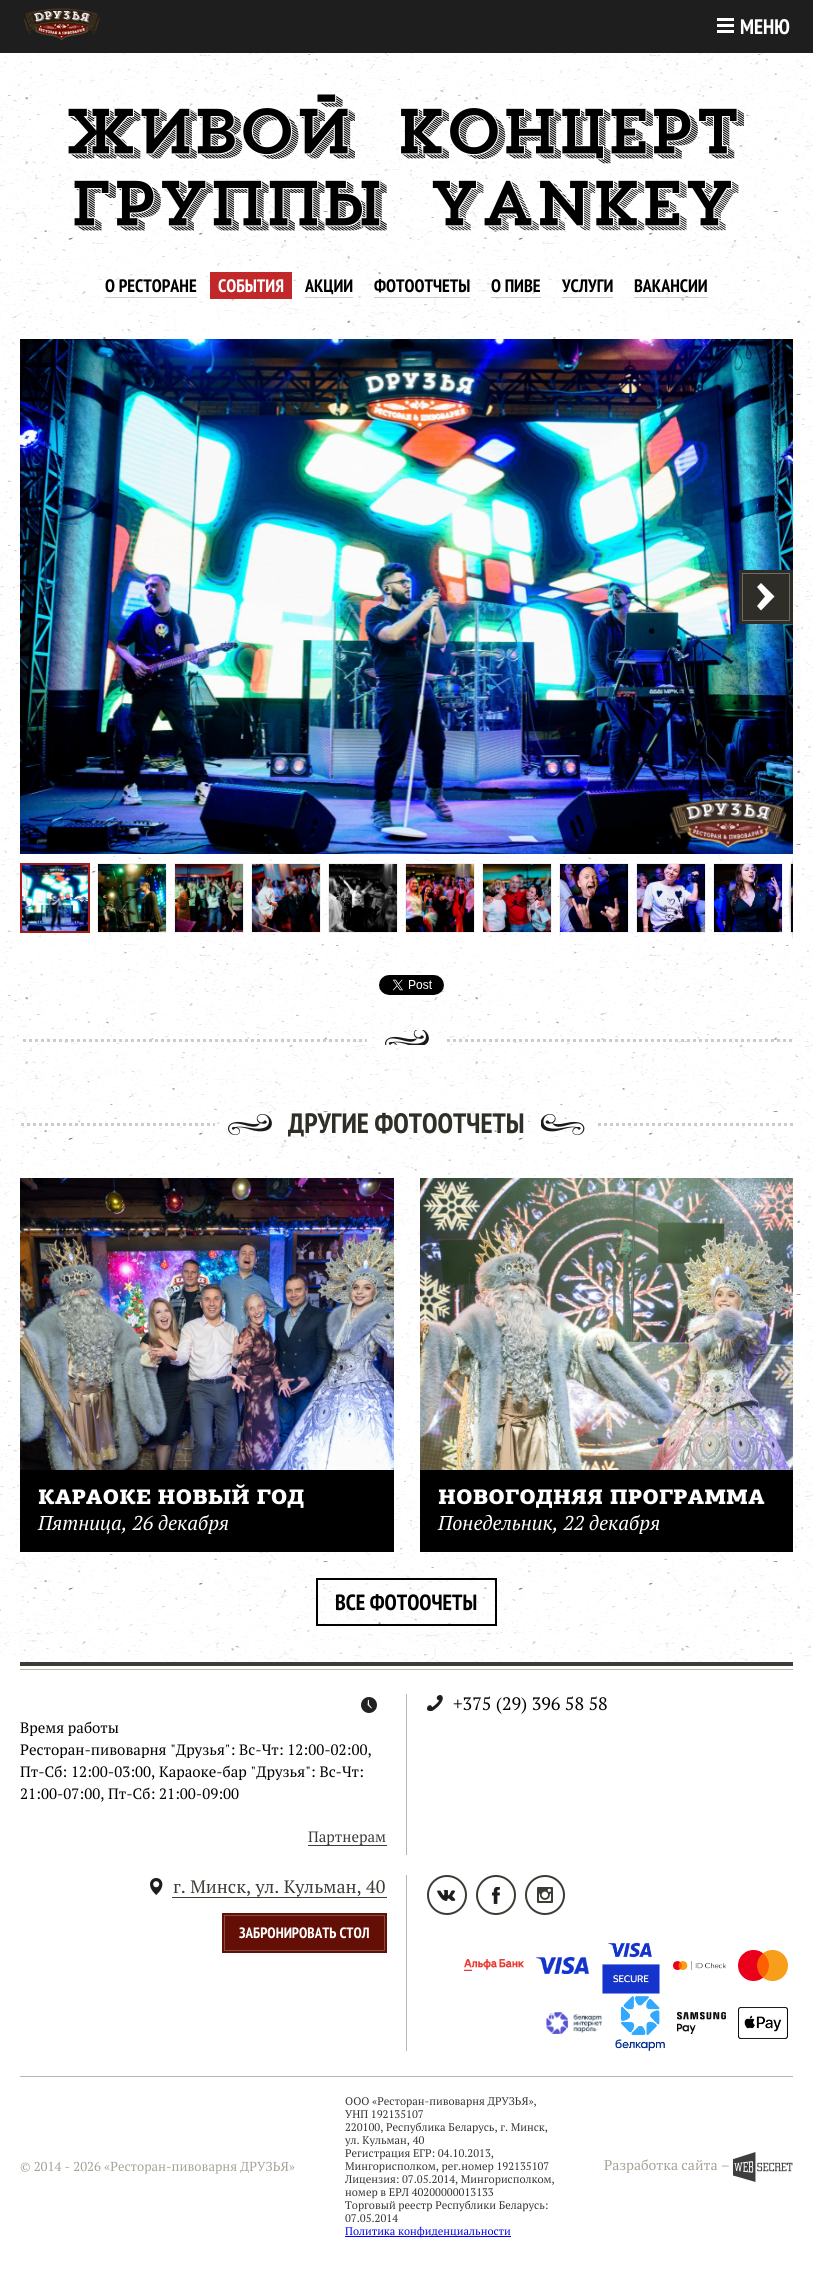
import math
import cairo

surface = cairo.ImageSurface(cairo.FORMAT_RGB24, 813, 2278)
ctx = cairo.Context(surface)
options = cairo.FontOptions()
options.set_hint_metrics(cairo.HINT_METRICS_OFF)
options.set_hint_style(cairo.HINT_STYLE_NONE)
ctx.set_font_options(options)
ctx.set_miter_limit(4)


def set_color(code):
    ctx.set_source_rgb(*(v / 255 for v in bytes.fromhex(code[-6:])))


def draw_text(x, y, s, family, size, color, bold=False, italic=False):
    ctx.select_font_face(family, cairo.FONT_SLANT_ITALIC if italic else cairo.FONT_SLANT_NORMAL, cairo.FONT_WEIGHT_BOLD if bold else cairo.FONT_WEIGHT_NORMAL)
    ctx.set_font_size(size)
    set_color(color)
    ctx.move_to(x, y)
    ctx.show_text(s)


def fill_rect(x, y, w, h, color):
    set_color(color)
    ctx.rectangle(x, y, w, h)
    ctx.fill()


def draw_image(path, x, y, w, h):
    ctx.save()
    ctx.set_source_surface(cairo.ImageSurface.create_from_png(path), x, y)
    ctx.rectangle(x, y, w, h)
    ctx.fill()
    ctx.restore()


set_color("#ffffff")
ctx.paint()
draw_image("assets/img1.png", 0, 53, 813, 1609)
fill_rect(0, 0, 813, 53, "#1e1e1e")
draw_image("assets/img2.png", 23, 8, 77, 32)
draw_image("assets/img3.png", 717, 18, 17, 15)
draw_text(740, 34, "МЕНЮ", "PT Sans Narrow", 21, "#ffffff", bold=True)
draw_text(68, 157, "ЖИВОЙ КОНЦЕРТ", "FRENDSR", 60, "#000000")
draw_text(74, 229, "ГРУППЫ YANKEY", "FRENDSR", 60, "#000000")
fill_rect(105, 297, 92, 1, "#cccccc")
draw_text(105, 292, "О РЕСТОРАНЕ", "PT Sans Narrow", 18, "#000000", bold=True)
fill_rect(210, 272, 82, 27, "#c22829")
draw_text(218, 292, "СОБЫТИЯ", "PT Sans Narrow", 18, "#ffffff", bold=True)
fill_rect(305, 297, 48, 1, "#cccccc")
draw_text(305, 292, "АКЦИИ", "PT Sans Narrow", 18, "#000000", bold=True)
fill_rect(374, 297, 96, 1, "#cccccc")
draw_text(374, 292, "ФОТООТЧЕТЫ", "PT Sans Narrow", 18, "#000000", bold=True)
fill_rect(491, 297, 50, 1, "#cccccc")
draw_text(491, 292, "О ПИВЕ", "PT Sans Narrow", 18, "#000000", bold=True)
fill_rect(562, 297, 51, 1, "#cccccc")
draw_text(562, 292, "УСЛУГИ", "PT Sans Narrow", 18, "#000000", bold=True)
fill_rect(634, 297, 74, 1, "#cccccc")
draw_text(634, 292, "ВАКАНСИИ", "PT Sans Narrow", 18, "#000000", bold=True)
draw_image("assets/img4.png", 20, 339, 773, 515)
fill_rect(739, 570, 54, 54, "#2f2d27")
ctx.rectangle(742.5, 573.5, 47, 47)
set_color("#6e6d68")
ctx.set_line_width(1)
ctx.stroke()
set_color("#ffffff")
ctx.new_path()
ctx.move_to(774.5, 596.5)
ctx.line_to(761, 583)
ctx.line_to(757, 587)
ctx.line_to(765, 596.5)
ctx.line_to(757, 606)
ctx.line_to(761, 610.5)
ctx.close_path()
ctx.fill()
ctx.save()
ctx.rectangle(20, 856, 773, 84)
ctx.clip()
ctx.rectangle(790.5, 863.5, 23, 69)
set_color("#f1f1f1")
ctx.stroke()
ctx.restore()
draw_image("assets/img14.png", 791, 864, 2, 68)
gradient = cairo.RadialGradient(0, 0, 0, 0, 0, 1)
gradient.set_matrix(cairo.Matrix(1 / 5, 0, 0, 1 / 42, -1 * 793 / 5, -1 * 898 / 42))
gradient.add_color_stop_rgba(0, 0, 0, 0, 0.4)
gradient.add_color_stop_rgba(1, 0, 0, 0, 0)
ctx.set_source(gradient)
ctx.rectangle(788, 856, 5, 84)
ctx.fill()
gradient = cairo.LinearGradient(793, 856, 793, 940)
gradient.add_color_stop_rgba(0, 0, 0, 0, 0)
gradient.add_color_stop_rgba(0.25, 0, 0, 0, 0.2)
gradient.add_color_stop_rgba(0.75, 0, 0, 0, 0.3)
gradient.add_color_stop_rgba(1, 0, 0, 0, 0)
ctx.set_source(gradient)
ctx.rectangle(792, 856, 1, 84)
ctx.fill()
draw_image("assets/img15.png", 22, 865, 66, 66)
ctx.rectangle(21, 864, 68, 68)
set_color("#a71a1b")
ctx.set_line_width(2)
ctx.stroke()
ctx.rectangle(97.5, 863.5, 69, 69)
set_color("#f1f1f1")
ctx.set_line_width(1)
ctx.stroke()
draw_image("assets/img5.png", 98, 864, 68, 68)
ctx.rectangle(174.5, 863.5, 69, 69)
ctx.stroke()
draw_image("assets/img6.png", 175, 864, 68, 68)
ctx.rectangle(251.5, 863.5, 69, 69)
ctx.stroke()
draw_image("assets/img7.png", 252, 864, 68, 68)
ctx.rectangle(328.5, 863.5, 69, 69)
ctx.stroke()
draw_image("assets/img8.png", 329, 864, 68, 68)
ctx.rectangle(405.5, 863.5, 69, 69)
ctx.stroke()
draw_image("assets/img9.png", 406, 864, 68, 68)
ctx.rectangle(482.5, 863.5, 69, 69)
ctx.stroke()
draw_image("assets/img10.png", 483, 864, 68, 68)
ctx.rectangle(559.5, 863.5, 69, 69)
ctx.stroke()
draw_image("assets/img11.png", 560, 864, 68, 68)
ctx.rectangle(636.5, 863.5, 69, 69)
ctx.stroke()
draw_image("assets/img12.png", 637, 864, 68, 68)
ctx.rectangle(713.5, 863.5, 69, 69)
ctx.stroke()
draw_image("assets/img13.png", 714, 864, 68, 68)
draw_image("assets/img16.png", 379, 975, 65, 20)
ctx.save()
ctx.rectangle(20, 1022, 773, 36)
ctx.clip()
ctx.new_path()
ctx.move_to(-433, 1040.5)
ctx.line_to(367, 1040.5)
set_color("#cccccc")
ctx.set_line_width(3)
ctx.set_dash([3, 3])
ctx.stroke()
ctx.restore()
draw_image("assets/img17.png", 385, 1030, 44, 15)
ctx.save()
ctx.rectangle(20, 1022, 773, 36)
ctx.clip()
ctx.new_path()
ctx.move_to(447, 1040.5)
ctx.line_to(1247, 1040.5)
set_color("#cccccc")
ctx.set_line_width(3)
ctx.set_dash([3, 3])
ctx.stroke()
ctx.restore()
ctx.save()
ctx.rectangle(20, 1083, 773, 60)
ctx.clip()
ctx.new_path()
ctx.move_to(-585, 1124.5)
ctx.line_to(215, 1124.5)
set_color("#cccccc")
ctx.set_line_width(3)
ctx.set_dash([3, 3])
ctx.stroke()
ctx.restore()
draw_image("assets/img18.png", 228, 1114, 44, 21)
draw_text(288, 1133, "ДРУГИЕ ФОТООТЧЕТЫ", "PT Sans Narrow", 28, "#2f2e27", bold=True)
draw_image("assets/img19.png", 541, 1114, 44, 21)
ctx.save()
ctx.rectangle(20, 1083, 773, 60)
ctx.clip()
ctx.new_path()
ctx.move_to(598, 1124.5)
ctx.line_to(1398, 1124.5)
set_color("#cccccc")
ctx.set_line_width(3)
ctx.set_dash([3, 3])
ctx.stroke()
ctx.restore()
draw_image("assets/img20.png", 20, 1178, 374, 292)
fill_rect(20, 1470, 374, 82, "#000000")
draw_text(38, 1504, "КАРАОКЕ НОВЫЙ ГОД", "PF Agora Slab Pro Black", 21, "#ffffff")
draw_text(38, 1530, "Пятница, 26 декабря", "PT Serif", 20, "#ffffff", italic=True)
draw_image("assets/img21.png", 420, 1178, 373, 292)
fill_rect(420, 1470, 373, 82, "#000000")
draw_text(438, 1504, "НОВОГОДНЯЯ ПРОГРАММА", "PF Agora Slab Pro Black", 21, "#ffffff")
draw_text(438, 1530, "Понедельник, 22 декабря", "PT Serif", 20, "#ffffff", italic=True)
ctx.rectangle(317, 1579, 179, 46)
set_color("#010101")
ctx.set_line_width(2)
ctx.stroke()
draw_text(335, 1610, "ВСЕ ФОТООЧЕТЫ", "PT Sans Narrow", 22, "#000000", bold=True)
fill_rect(20, 1662, 773, 4, "#3d3c36")
fill_rect(20, 1669, 773, 1, "#b8b4a7")
draw_image("assets/img22.png", 427, 1695, 16, 17)
draw_text(453, 1710, "+375 (29) 396 58 58", "PT Serif", 18, "#000000")
draw_image("assets/img23.png", 361, 1697, 16, 16)
draw_text(20, 1733, "Время работы", "PT Serif", 15, "#000000")
draw_text(20, 1755, "Ресторан-пивоварня \"Друзья\": Вс-Чт: 12:00-02:00,", "PT Serif", 15, "#000000")
draw_text(20, 1777, "Пт-Сб: 12:00-03:00, Караоке-бар \"Друзья\": Вс-Чт:", "PT Serif", 15, "#000000")
draw_text(20, 1799, "21:00-07:00, Пт-Сб: 21:00-09:00", "PT Serif", 15, "#000000")
fill_rect(406, 1694, 1, 161, "#b9b5aa")
fill_rect(308, 1845, 79, 1, "#3d3c36")
draw_text(308, 1842, "Партнерам", "PT Serif", 15, "#3d3c36")
draw_image("assets/img24.png", 150, 1878, 13, 17)
fill_rect(172, 1897, 215, 1, "#3d3c36")
draw_text(173, 1893, "г. Минск, ул. Кульман, 40", "PT Serif", 18, "#3d3c36")
fill_rect(222, 1913, 165, 40, "#630f06")
ctx.rectangle(224.5, 1915.5, 160, 35)
set_color("#8a4b44")
ctx.set_line_width(1)
ctx.stroke()
draw_text(239, 1938, "ЗАБРОНИРОВАТЬ СТОЛ", "PT Sans Narrow", 15, "#ffffff", bold=True)
fill_rect(406, 1875, 1, 176, "#b9b5aa")
ctx.new_path()
ctx.arc(447, 1895, 19, 0, 2 * math.pi)
set_color("#3d3b35")
ctx.set_line_width(2)
ctx.stroke()
draw_image("assets/img25.png", 437, 1890, 19, 11)
ctx.arc(496, 1895, 19, 0, 2 * math.pi)
ctx.stroke()
draw_image("assets/img26.png", 492, 1887, 8, 17)
ctx.arc(545, 1895, 19, 0, 2 * math.pi)
ctx.stroke()
draw_image("assets/img27.png", 537, 1887, 16, 16)
draw_image("assets/img28.png", 464, 1959, 60, 12)
draw_image("assets/img29.png", 536, 1957, 53, 17)
draw_image("assets/img30.png", 602, 1942, 58, 52)
draw_image("assets/img31.png", 673, 1961, 53, 9)
draw_image("assets/img32.png", 738, 1950, 50, 31)
draw_image("assets/img33.png", 546, 2012, 56, 22)
draw_image("assets/img34.png", 615, 1996, 50, 55)
draw_image("assets/img35.png", 677, 2012, 49, 22)
draw_image("assets/img36.png", 738, 2007, 50, 32)
fill_rect(20, 2076, 773, 1, "#b9b5aa")
draw_text(20, 2171, "© 2014 - 2026 «Ресторан-пивоварня ДРУЗЬЯ»", "PT Serif", 13, "#a6a396")
draw_text(345, 2105, "ООО «Ресторан-пивоварня ДРУЗЬЯ»,", "PT Serif", 11, "#333333")
draw_text(345, 2118, "УНП 192135107", "PT Serif", 11, "#333333")
draw_text(345, 2131, "220100, Республика Беларусь, г. Минск,", "PT Serif", 11, "#333333")
draw_text(345, 2144, "ул. Кульман, 40", "PT Serif", 11, "#333333")
draw_text(345, 2157, "Регистрация ЕГР: 04.10.2013,", "PT Serif", 11, "#333333")
draw_text(345, 2170, "Мингорисполком, рег.номер 192135107", "PT Serif", 11, "#333333")
draw_text(345, 2183, "Лицензия: 07.05.2014, Мингорисполком,", "PT Serif", 11, "#333333")
draw_text(345, 2196, "номер в ЕРЛ 40200000013133", "PT Serif", 11, "#333333")
draw_text(345, 2209, "Торговый реестр Республики Беларусь:", "PT Serif", 11, "#333333")
draw_text(345, 2222, "07.05.2014", "PT Serif", 11, "#333333")
fill_rect(345, 2236, 166, 1, "#0000ee")
draw_text(345, 2235, "Политика конфиденциальности", "PT Serif", 11, "#0000ee")
draw_text(604, 2170, "Разработка сайта –", "PT Serif", 14, "#a6a396")
draw_image("assets/img37.png", 733, 2152, 60, 30)
surface.write_to_png("output.png")
